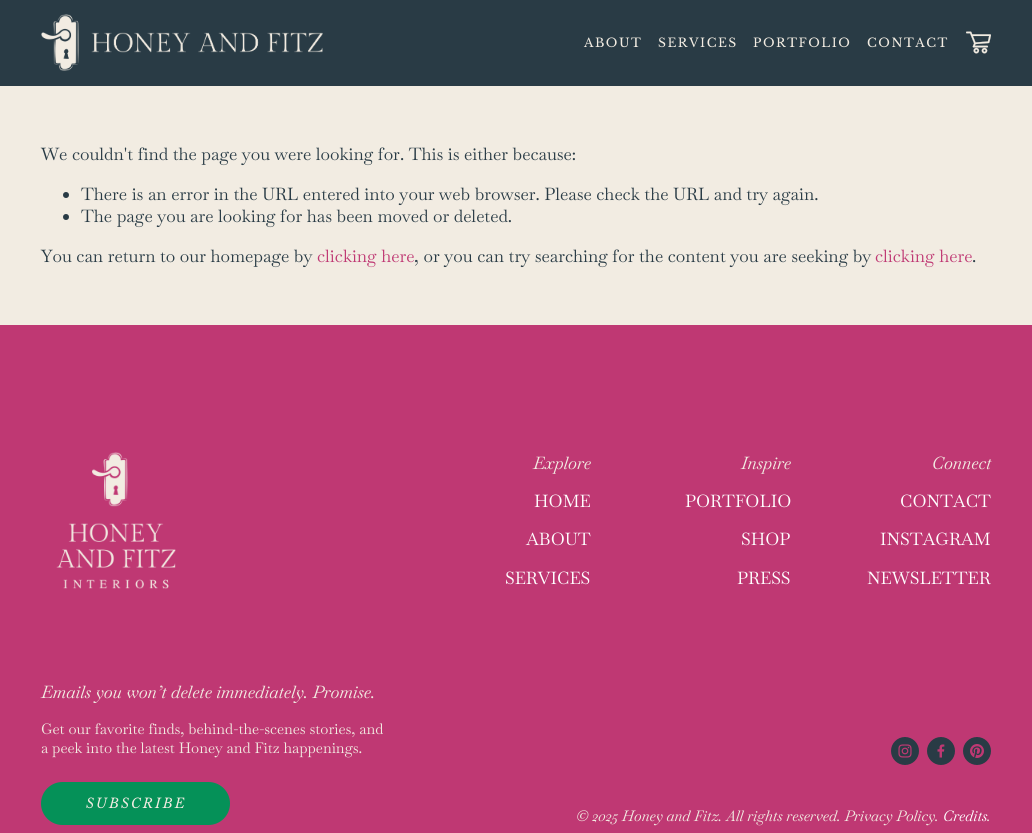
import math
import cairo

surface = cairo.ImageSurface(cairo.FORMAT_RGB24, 1032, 833)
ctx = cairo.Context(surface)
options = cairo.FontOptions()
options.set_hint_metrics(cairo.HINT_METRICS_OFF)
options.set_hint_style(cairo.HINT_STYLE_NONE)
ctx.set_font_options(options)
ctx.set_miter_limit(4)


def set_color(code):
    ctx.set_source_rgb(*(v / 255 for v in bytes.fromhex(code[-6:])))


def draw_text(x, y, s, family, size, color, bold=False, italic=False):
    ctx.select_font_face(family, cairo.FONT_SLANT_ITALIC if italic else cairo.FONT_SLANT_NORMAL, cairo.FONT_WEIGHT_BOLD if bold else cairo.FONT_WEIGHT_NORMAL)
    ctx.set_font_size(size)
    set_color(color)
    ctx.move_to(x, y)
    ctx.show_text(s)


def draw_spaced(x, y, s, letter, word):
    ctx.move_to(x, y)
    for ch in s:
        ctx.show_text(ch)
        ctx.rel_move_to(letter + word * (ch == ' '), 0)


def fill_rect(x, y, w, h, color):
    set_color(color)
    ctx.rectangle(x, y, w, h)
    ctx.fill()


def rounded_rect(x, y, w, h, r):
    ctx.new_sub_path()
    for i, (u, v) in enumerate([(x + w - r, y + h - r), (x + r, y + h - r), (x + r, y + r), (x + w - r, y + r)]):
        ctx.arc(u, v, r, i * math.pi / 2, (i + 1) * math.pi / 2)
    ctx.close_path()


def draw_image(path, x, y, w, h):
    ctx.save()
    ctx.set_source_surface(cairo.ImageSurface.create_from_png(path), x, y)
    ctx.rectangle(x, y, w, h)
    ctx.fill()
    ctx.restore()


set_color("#f2ece2")
ctx.paint()
fill_rect(0, 0, 1032, 86, "#293b45")
draw_image("assets/img1.png", 41, 14, 282, 57)
ctx.select_font_face("Libre Baskerville")
ctx.set_font_size(12.25)
set_color("#f2ece2")
draw_spaced(584, 47, "ABOUT", 1.5, 0)
draw_spaced(658, 47, "SERVICES", 1.5, 0)
draw_spaced(753, 47, "PORTFOLIO", 1.5, 0)
draw_spaced(867, 47, "CONTACT", 1.5, 0)
draw_image("assets/img2.png", 966, 31, 25, 23)
draw_text(41, 160, "We couldn't find the page you were looking for. This is either because:", "Baskervville", 17.25, "#293b45")
ctx.new_path()
ctx.arc(66, 195, 3, 0, 2 * math.pi)
ctx.fill()
draw_text(81, 200, "There is an error in the URL entered into your web browser. Please check the URL and try again.", "Baskervville", 17.25, "#293b45")
ctx.new_path()
ctx.arc(66, 217, 3, 0, 2 * math.pi)
ctx.fill()
draw_text(81, 222, "The page you are looking for has been moved or deleted.", "Baskervville", 17.25, "#293b45")
draw_text(41, 262, "You can return to our homepage by", "Baskervville", 17.25, "#293b45")
draw_text(317, 262, "clicking here", "Baskervville", 17.25, "#bf3873")
draw_text(414, 262, ", or you can try searching for the content you are seeking by", "Baskervville", 17.25, "#293b45")
draw_text(875, 262, "clicking here", "Baskervville", 17.25, "#bf3873")
draw_text(972, 262, ".", "Baskervville", 17.25, "#293b45")
fill_rect(0, 325, 1032, 508, "#bf3873")
draw_image("assets/img3.png", 56, 452, 120, 137)
draw_text(533, 469, "Explore", "Baskervville", 17.25, "#f2ece2", italic=True)
draw_text(534, 507, "HOME", "Baskervville", 17.25, "#ffffff")
draw_text(526, 545, "ABOUT", "Baskervville", 17.25, "#ffffff")
draw_text(505, 584, "SERVICES", "Baskervville", 17.25, "#ffffff")
draw_text(741, 469, "Inspire", "Baskervville", 17.25, "#f2ece2", italic=True)
draw_text(685, 507, "PORTFOLIO", "Baskervville", 17.25, "#ffffff")
draw_text(741, 545, "SHOP", "Baskervville", 17.25, "#ffffff")
draw_text(737, 584, "PRESS", "Baskervville", 17.25, "#ffffff")
draw_text(932, 469, "Connect", "Baskervville", 17.25, "#f2ece2", italic=True)
draw_text(900, 507, "CONTACT", "Baskervville", 17.25, "#ffffff")
draw_text(880, 545, "INSTAGRAM", "Baskervville", 17.25, "#ffffff")
draw_text(867, 584, "NEWSLETTER", "Baskervville", 17.25, "#ffffff")
draw_text(41, 698, "Emails you won’t delete immediately. Promise.", "Baskervville", 17.25, "#f2ece2", italic=True)
draw_text(41, 734, "Get our favorite finds, behind-the-scenes stories, and", "Baskervville", 14.75, "#f2ece2")
draw_text(41, 753, "a peek into the latest Honey and Fitz happenings.", "Baskervville", 14.75, "#f2ece2")
draw_image("assets/img4.png", 891, 737, 28, 28)
draw_image("assets/img5.png", 927, 737, 28, 28)
draw_image("assets/img6.png", 963, 737, 28, 28)
set_color("#059158")
rounded_rect(41, 782, 189, 43, 21.5)
ctx.fill()
ctx.select_font_face("Libre Baskerville", cairo.FONT_SLANT_ITALIC)
ctx.set_font_size(13.5)
set_color("#f2ece2")
draw_spaced(86, 808, "SUBSCRIBE", 2, 0)
draw_text(576, 821, "© 2025 Honey and Fitz. All rights reserved. Privacy Policy.", "Baskervville", 14.75, "#f2ece2", italic=True)
draw_text(943, 821, "Credits", "Baskervville", 14.75, "#ffffff", italic=True)
draw_text(987, 821, ".", "Baskervville", 14.75, "#f2ece2", italic=True)
surface.write_to_png("output.png")
